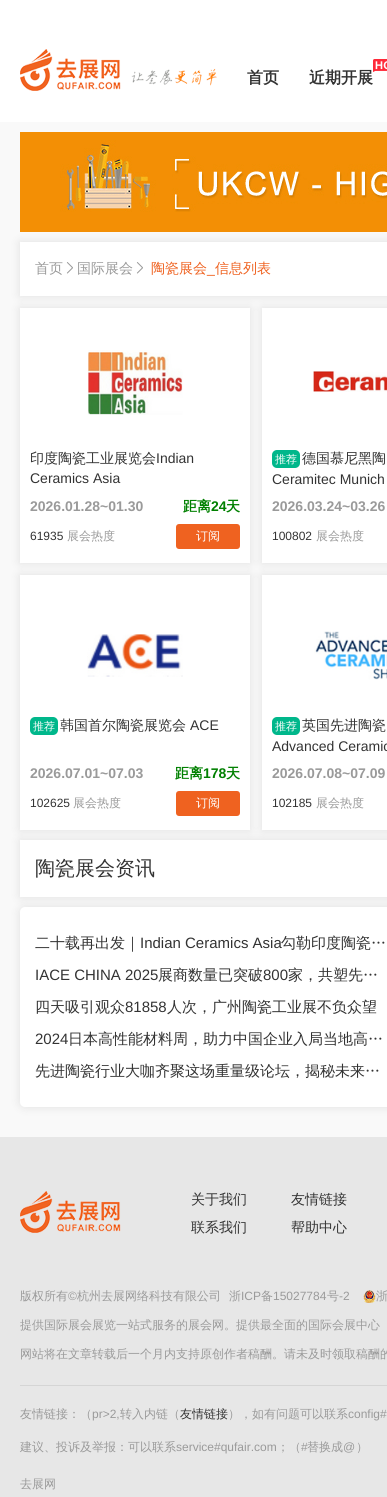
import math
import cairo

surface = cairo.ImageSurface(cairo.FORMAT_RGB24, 387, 1497)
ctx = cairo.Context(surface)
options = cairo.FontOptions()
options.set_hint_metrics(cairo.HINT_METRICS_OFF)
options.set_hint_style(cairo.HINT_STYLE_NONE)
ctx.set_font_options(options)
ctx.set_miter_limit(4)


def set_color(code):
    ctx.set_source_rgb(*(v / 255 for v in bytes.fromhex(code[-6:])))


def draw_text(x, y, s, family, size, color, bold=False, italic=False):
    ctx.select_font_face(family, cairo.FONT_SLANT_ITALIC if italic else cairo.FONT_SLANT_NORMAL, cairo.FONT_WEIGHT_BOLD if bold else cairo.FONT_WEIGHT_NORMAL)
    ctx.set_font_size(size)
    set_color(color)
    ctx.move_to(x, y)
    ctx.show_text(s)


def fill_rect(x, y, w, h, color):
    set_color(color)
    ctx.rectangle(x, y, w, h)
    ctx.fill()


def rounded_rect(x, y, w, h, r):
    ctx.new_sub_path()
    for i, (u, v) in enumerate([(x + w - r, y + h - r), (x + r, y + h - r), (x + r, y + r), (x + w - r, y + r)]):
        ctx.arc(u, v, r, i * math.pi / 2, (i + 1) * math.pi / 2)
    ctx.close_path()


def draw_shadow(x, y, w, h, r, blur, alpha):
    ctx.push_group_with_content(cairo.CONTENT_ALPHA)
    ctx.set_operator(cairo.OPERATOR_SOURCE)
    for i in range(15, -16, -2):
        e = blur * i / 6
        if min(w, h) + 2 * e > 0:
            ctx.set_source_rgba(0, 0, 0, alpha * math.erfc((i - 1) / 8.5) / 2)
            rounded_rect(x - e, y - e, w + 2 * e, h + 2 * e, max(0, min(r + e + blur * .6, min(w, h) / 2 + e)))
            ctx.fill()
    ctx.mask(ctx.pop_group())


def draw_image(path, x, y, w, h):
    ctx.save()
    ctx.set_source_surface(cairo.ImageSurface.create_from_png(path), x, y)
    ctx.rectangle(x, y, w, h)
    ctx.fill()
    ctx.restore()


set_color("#f9f9f9")
ctx.paint()
fill_rect(0, 0, 387, 122, "#ffffff")
draw_image("assets/img1.png", 20, 49, 197, 42)
draw_text(247, 83, "首页", "WenQuanYi Zen Hei", 16, "#333333", bold=True)
draw_image("assets/img2.png", 373, 59, 14, 13)
draw_text(309, 83, "近期开展", "WenQuanYi Zen Hei", 16, "#333333", bold=True)
draw_image("assets/img3.png", 20, 132, 367, 100)
set_color("#000000")
draw_shadow(20, 308, 230, 255, 0, 5, 0.1)
fill_rect(20, 308, 230, 255, "#ffffff")
set_color("#000000")
draw_shadow(262, 308, 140, 255, 0, 5, 0.1)
fill_rect(262, 308, 125, 255, "#ffffff")
set_color("#000000")
draw_shadow(20, 242, 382, 54, 0, 5, 0.1)
fill_rect(20, 242, 367, 54, "#ffffff")
draw_text(35, 273, "首页", "WenQuanYi Zen Hei Medium", 14, "#9a9a9a")
draw_image("assets/img4.png", 66, 262, 7, 12)
draw_text(77, 273, "国际展会", "WenQuanYi Zen Hei Medium", 14, "#9a9a9a")
draw_image("assets/img4.png", 136, 262, 7, 12)
draw_text(151, 273, "陶瓷展会", "WenQuanYi Zen Hei Medium", 14, "#ef6220")
draw_text(207, 273, "_", "Liberation Sans", 14, "#ef6220")
draw_text(215, 273, "信息列表", "WenQuanYi Zen Hei Medium", 14, "#ef6220")
draw_image("assets/img5.png", 88, 350, 95, 65)
draw_text(30, 463, "印度陶瓷工业展览会", "WenQuanYi Zen Hei Medium", 14, "#333333")
draw_text(156, 463, "Indian", "Liberation Sans", 14, "#333333")
draw_text(30, 483, "Ceramics Asia", "Liberation Sans", 14, "#333333")
draw_text(30, 511, "2026.01.28~01.30", "Liberation Sans", 14, "#9a9a9a", bold=True)
draw_text(183, 511, "距离", "WenQuanYi Zen Hei", 14, "#008000", bold=True)
draw_text(211, 511, "24", "Liberation Sans", 14, "#008000", bold=True)
draw_text(226, 511, "天", "WenQuanYi Zen Hei", 14, "#008000", bold=True)
draw_text(30, 540, "61935", "Liberation Sans", 12, "#333333")
draw_text(67, 540, "展会热度", "WenQuanYi Zen Hei Medium", 12, "#9a9a9a")
set_color("#ef6220")
rounded_rect(176, 524, 64, 25, 3)
ctx.fill()
draw_text(196, 540, "订阅", "WenQuanYi Zen Hei Medium", 12, "#ffffff")
draw_image("assets/img6.png", 313, 371, 74, 21)
set_color("#00b78b")
rounded_rect(272, 450, 28, 18, 5)
ctx.fill()
draw_text(275, 463, "推荐", "WenQuanYi Zen Hei Medium", 11, "#ffffff")
draw_text(302, 463, "德国慕尼黑陶", "WenQuanYi Zen Hei Medium", 14, "#333333")
draw_text(272, 484, "Ceramitec Munich", "Liberation Sans", 14, "#333333")
draw_text(272, 511, "2026.03.24~03.26", "Liberation Sans", 14, "#9a9a9a", bold=True)
draw_text(272, 540, "100802", "Liberation Sans", 12, "#333333")
draw_text(316, 540, "展会热度", "WenQuanYi Zen Hei Medium", 12, "#9a9a9a")
set_color("#000000")
draw_shadow(20, 840, 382, 57, 0, 5, 0.1)
fill_rect(20, 840, 367, 57, "#ffffff")
set_color("#000000")
draw_shadow(20, 575, 230, 255, 0, 5, 0.1)
fill_rect(20, 575, 230, 255, "#ffffff")
draw_image("assets/img7.png", 87, 634, 96, 43)
set_color("#00b78b")
rounded_rect(30, 717, 28, 18, 5)
ctx.fill()
draw_text(33, 730, "推荐", "WenQuanYi Zen Hei Medium", 11, "#ffffff")
draw_text(60, 730, "韩国首尔陶瓷展览会", "WenQuanYi Zen Hei Medium", 14, "#333333")
draw_text(190, 730, "ACE", "Liberation Sans", 14, "#333333")
draw_text(30, 778, "2026.07.01~07.03", "Liberation Sans", 14, "#9a9a9a", bold=True)
draw_text(175, 778, "距离", "WenQuanYi Zen Hei", 14, "#008000", bold=True)
draw_text(203, 778, "178", "Liberation Sans", 14, "#008000", bold=True)
draw_text(226, 778, "天", "WenQuanYi Zen Hei", 14, "#008000", bold=True)
draw_text(30, 807, "102625", "Liberation Sans", 12, "#333333")
draw_text(73, 807, "展会热度", "WenQuanYi Zen Hei Medium", 12, "#9a9a9a")
set_color("#ef6220")
rounded_rect(176, 791, 64, 25, 3)
ctx.fill()
draw_text(196, 807, "订阅", "WenQuanYi Zen Hei Medium", 12, "#ffffff")
set_color("#000000")
draw_shadow(262, 575, 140, 255, 0, 5, 0.1)
fill_rect(262, 575, 125, 255, "#ffffff")
draw_image("assets/img8.png", 314, 631, 73, 49)
set_color("#00b78b")
rounded_rect(272, 717, 28, 18, 5)
ctx.fill()
draw_text(275, 730, "推荐", "WenQuanYi Zen Hei Medium", 11, "#ffffff")
draw_text(302, 730, "英国先进陶瓷", "WenQuanYi Zen Hei Medium", 14, "#333333")
draw_text(272, 751, "Advanced Ceramic", "Liberation Sans", 14, "#333333")
draw_text(272, 778, "2026.07.08~07.09", "Liberation Sans", 14, "#9a9a9a", bold=True)
draw_text(272, 807, "102185", "Liberation Sans", 12, "#333333")
draw_text(316, 807, "展会热度", "WenQuanYi Zen Hei Medium", 12, "#9a9a9a")
draw_text(35, 875, "陶瓷展会资讯", "WenQuanYi Zen Hei Medium", 20, "#333333")
set_color("#000000")
draw_shadow(20, 907, 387, 200, 5, 5, 0.1)
set_color("#ffffff")
rounded_rect(20, 907, 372, 200, 5)
ctx.fill()
draw_text(35, 948, "二十载再出发｜", "WenQuanYi Zen Hei Medium", 15, "#333333")
draw_text(140, 948, "Indian Ceramics Asia", "Liberation Sans", 15, "#333333")
draw_text(281, 948, "勾勒印度陶瓷…", "WenQuanYi Zen Hei Medium", 15, "#333333")
draw_text(35, 980, "IACE CHINA 2025", "Liberation Sans", 15, "#333333")
draw_text(158, 980, "展商数量已突破", "WenQuanYi Zen Hei Medium", 15, "#333333")
draw_text(263, 980, "800", "Liberation Sans", 15, "#333333")
draw_text(288, 980, "家，共塑先…", "WenQuanYi Zen Hei Medium", 15, "#333333")
draw_text(35, 1012, "四天吸引观众", "WenQuanYi Zen Hei Medium", 15, "#333333")
draw_text(125, 1012, "81858", "Liberation Sans", 15, "#333333")
draw_text(167, 1012, "人次，广州陶瓷工业展不负众望", "WenQuanYi Zen Hei Medium", 15, "#333333")
draw_text(35, 1044, "2024", "Liberation Sans", 15, "#333333")
draw_text(68, 1044, "日本高性能材料周，助力中国企业入局当地高…", "WenQuanYi Zen Hei Medium", 15, "#333333")
draw_text(35, 1076, "先进陶瓷行业大咖齐聚这场重量级论坛，揭秘未来…", "WenQuanYi Zen Hei Medium", 15, "#333333")
fill_rect(0, 1137, 387, 360, "#e7e7e7")
draw_image("assets/img9.png", 20, 1191, 101, 42)
draw_text(191, 1204, "关于我们", "WenQuanYi Zen Hei Medium", 14, "#333333")
draw_text(191, 1232, "联系我们", "WenQuanYi Zen Hei Medium", 14, "#333333")
draw_text(291, 1204, "友情链接", "WenQuanYi Zen Hei Medium", 14, "#333333")
draw_text(291, 1232, "帮助中心", "WenQuanYi Zen Hei Medium", 14, "#333333")
draw_text(20, 1300, "版权所有", "WenQuanYi Zen Hei Medium", 12, "#9a9a9a")
draw_text(68, 1300, "©", "Liberation Sans", 12, "#9a9a9a")
draw_text(77, 1300, "杭州去展网络科技有限公司", "WenQuanYi Zen Hei Medium", 12, "#9a9a9a")
draw_text(229, 1300, "浙", "WenQuanYi Zen Hei Medium", 12, "#9a9a9a")
draw_text(241, 1300, "ICP", "Liberation Sans", 12, "#9a9a9a")
draw_text(261, 1300, "备", "WenQuanYi Zen Hei Medium", 12, "#9a9a9a")
draw_text(273, 1300, "15027784", "Liberation Sans", 12, "#9a9a9a")
draw_text(327, 1300, "号", "WenQuanYi Zen Hei Medium", 12, "#9a9a9a")
draw_text(339, 1300, "-2", "Liberation Sans", 12, "#9a9a9a")
draw_image("assets/img10.png", 363, 1290, 13, 13)
draw_text(376, 1300, "浙", "WenQuanYi Zen Hei Medium", 12, "#9a9a9a")
draw_text(20, 1329, "提供国际展会展览一站式服务的展会网。提供最全面的国际会展中心", "WenQuanYi Zen Hei Medium", 12, "#9a9a9a")
draw_text(20, 1358, "网站将在文章转载后一个月内支持原创作者稿酬。请未及时领取稿酬的", "WenQuanYi Zen Hei Medium", 12, "#9a9a9a")
fill_rect(20, 1385, 367, 1, "#d5d5d5")
draw_text(20, 1418, "友情链接：（", "WenQuanYi Zen Hei Medium", 12, "#9a9a9a")
draw_text(92, 1418, "pr>2,", "Liberation Sans", 12, "#9a9a9a")
draw_text(120, 1418, "转入内链（", "WenQuanYi Zen Hei Medium", 12, "#9a9a9a")
draw_text(180, 1418, "友情链接", "WenQuanYi Zen Hei Medium", 12, "#333333")
draw_text(228, 1418, "），如有问题可以联系", "WenQuanYi Zen Hei Medium", 12, "#9a9a9a")
draw_text(348, 1418, "config#", "Liberation Sans", 12, "#9a9a9a")
draw_text(20, 1451, "建议、投诉及举报：可以联系", "WenQuanYi Zen Hei Medium", 12, "#9a9a9a")
draw_text(176, 1451, "service#qufair.com", "Liberation Sans", 12, "#9a9a9a")
draw_text(277, 1451, "；（", "WenQuanYi Zen Hei Medium", 12, "#9a9a9a")
draw_text(301, 1451, "#", "Liberation Sans", 12, "#9a9a9a")
draw_text(307, 1451, "替换成", "WenQuanYi Zen Hei Medium", 12, "#9a9a9a")
draw_text(343, 1451, "@", "Liberation Sans", 12, "#9a9a9a")
draw_text(356, 1451, "）", "WenQuanYi Zen Hei Medium", 12, "#9a9a9a")
draw_text(20, 1488, "去展网", "WenQuanYi Zen Hei Medium", 12, "#9a9a9a")
surface.write_to_png("output.png")
